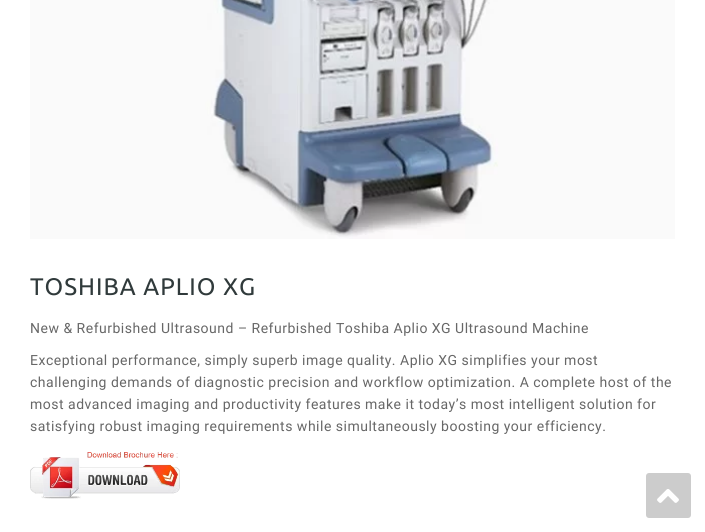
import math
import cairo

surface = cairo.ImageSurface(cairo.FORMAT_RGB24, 705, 532)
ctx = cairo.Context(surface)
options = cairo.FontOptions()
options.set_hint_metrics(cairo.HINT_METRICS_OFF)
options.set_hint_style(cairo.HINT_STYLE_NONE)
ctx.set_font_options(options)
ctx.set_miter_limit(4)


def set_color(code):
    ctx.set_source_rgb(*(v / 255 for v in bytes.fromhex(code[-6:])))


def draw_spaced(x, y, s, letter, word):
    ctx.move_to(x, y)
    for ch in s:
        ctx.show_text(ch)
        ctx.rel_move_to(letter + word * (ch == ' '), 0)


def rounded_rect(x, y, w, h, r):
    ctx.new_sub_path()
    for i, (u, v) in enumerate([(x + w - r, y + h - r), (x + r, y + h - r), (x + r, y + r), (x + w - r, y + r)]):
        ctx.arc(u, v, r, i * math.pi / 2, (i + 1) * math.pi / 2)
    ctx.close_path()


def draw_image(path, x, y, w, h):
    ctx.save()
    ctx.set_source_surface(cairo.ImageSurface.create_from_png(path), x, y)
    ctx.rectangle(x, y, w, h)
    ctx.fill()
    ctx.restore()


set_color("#ffffff")
ctx.paint()
draw_image("assets/img1.png", 30, 0, 645, 239)
ctx.select_font_face("Ubuntu")
ctx.set_font_size(24)
set_color("#303a3b")
draw_spaced(30, 295, "TOSHIBA APLIO XG", 1, 0)
ctx.select_font_face("Roboto")
ctx.set_font_size(14)
set_color("#676767")
draw_spaced(30, 333, "New & Refurbished Ultrasound – Refurbished Toshiba Aplio XG Ultrasound Machine", 0.5, 0)
draw_spaced(30, 365, "Exceptional performance, simply superb image quality. Aplio XG simplifies your most", 0.5, 0)
draw_spaced(30, 387, "challenging demands of diagnostic precision and workflow optimization. A complete host of the", 0.5, 0)
draw_spaced(30, 409, "most advanced imaging and productivity features make it today’s most intelligent solution for", 0.5, 0)
draw_spaced(30, 431, "satisfying robust imaging requirements while simultaneously boosting your efficiency.", 0.5, 0)
draw_image("assets/img2.png", 30, 452, 150, 47)
set_color("#cccccc")
rounded_rect(646, 473, 45, 45, 3)
ctx.fill()
draw_image("assets/img3.png", 657, 489, 22, 14)
surface.write_to_png("output.png")
